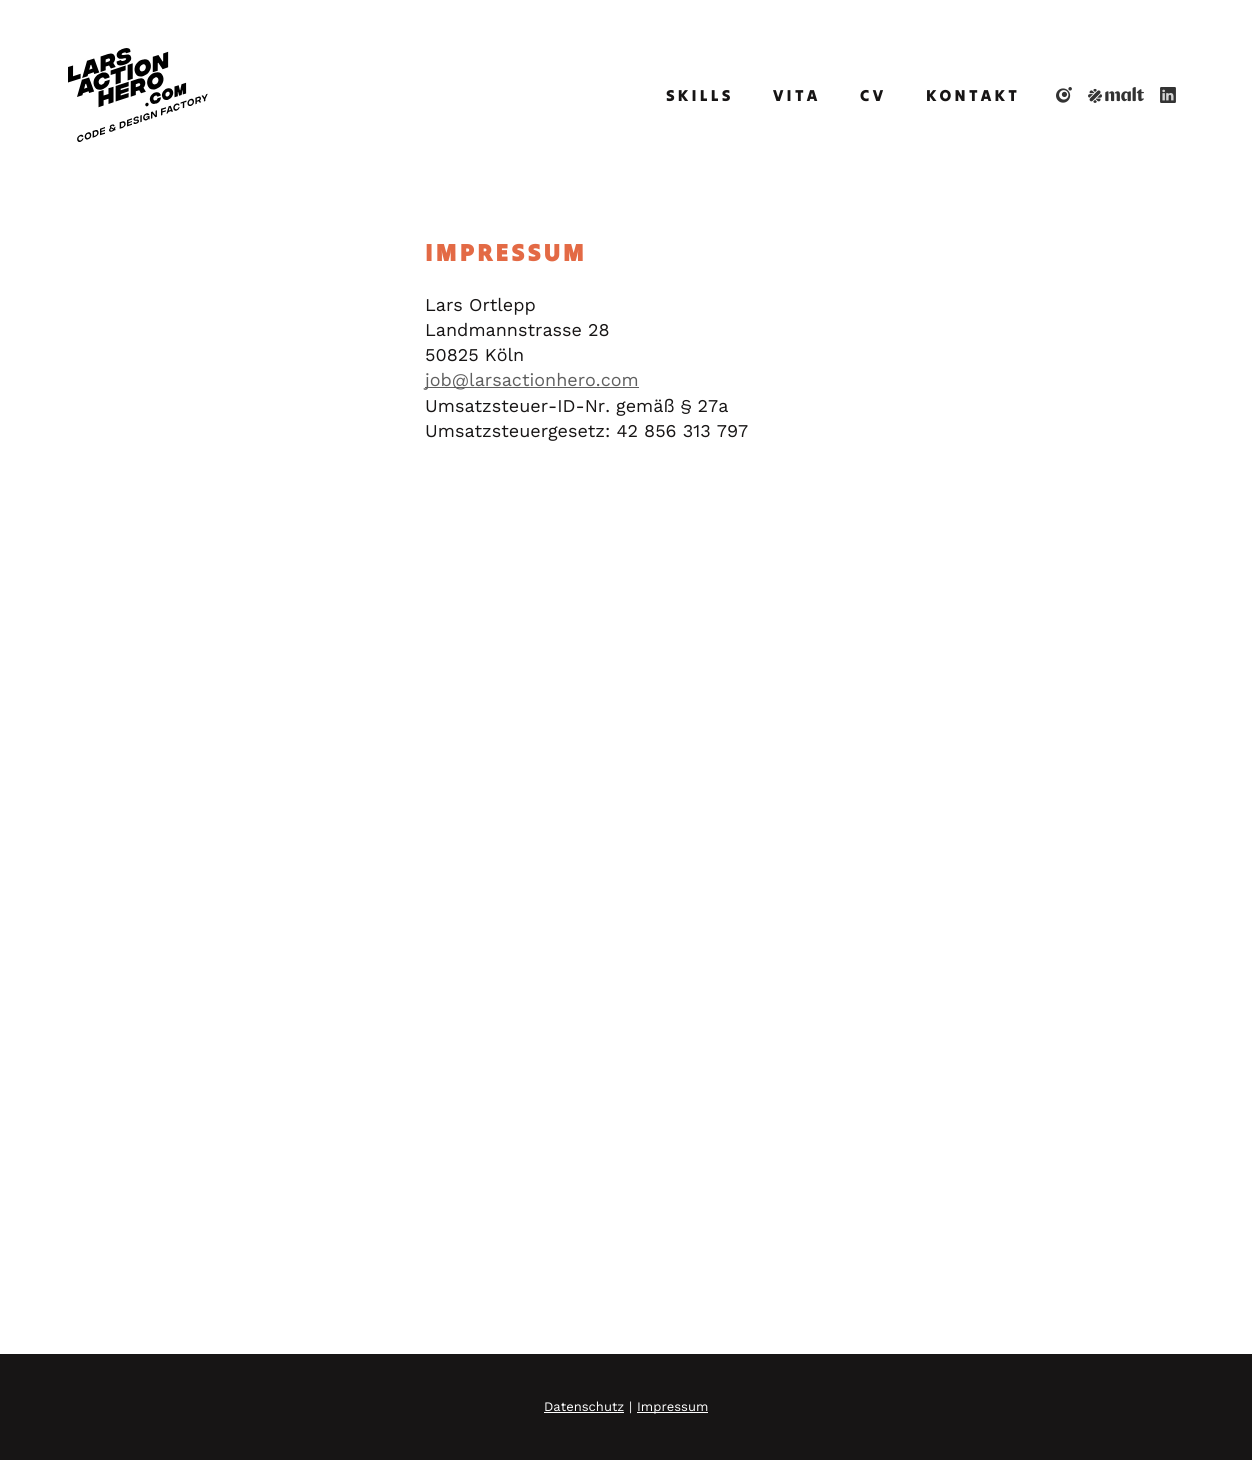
import math
import cairo

surface = cairo.ImageSurface(cairo.FORMAT_RGB24, 1252, 1460)
ctx = cairo.Context(surface)
options = cairo.FontOptions()
options.set_hint_metrics(cairo.HINT_METRICS_OFF)
options.set_hint_style(cairo.HINT_STYLE_NONE)
ctx.set_font_options(options)
ctx.set_miter_limit(4)


def set_color(code):
    ctx.set_source_rgb(*(v / 255 for v in bytes.fromhex(code[-6:])))


def draw_text(x, y, s, family, size, color, bold=False, italic=False):
    ctx.select_font_face(family, cairo.FONT_SLANT_ITALIC if italic else cairo.FONT_SLANT_NORMAL, cairo.FONT_WEIGHT_BOLD if bold else cairo.FONT_WEIGHT_NORMAL)
    ctx.set_font_size(size)
    set_color(color)
    ctx.move_to(x, y)
    ctx.show_text(s)


def draw_spaced(x, y, s, letter, word):
    ctx.move_to(x, y)
    for ch in s:
        ctx.show_text(ch)
        ctx.rel_move_to(letter + word * (ch == ' '), 0)


def fill_rect(x, y, w, h, color):
    set_color(color)
    ctx.rectangle(x, y, w, h)
    ctx.fill()


def draw_image(path, x, y, w, h):
    ctx.save()
    ctx.set_source_surface(cairo.ImageSurface.create_from_png(path), x, y)
    ctx.rectangle(x, y, w, h)
    ctx.fill()
    ctx.restore()


set_color("#ffffff")
ctx.paint()
draw_image("assets/img1.png", 68, 48, 140, 94)
ctx.select_font_face("Tilt Warp")
ctx.set_font_size(16)
set_color("#171515")
draw_spaced(666, 101, "SKILLS", 3.25, 0)
draw_spaced(773, 101, "VITA", 3.25, 0)
draw_spaced(860, 101, "CV", 3.25, 0)
draw_spaced(926, 101, "KONTAKT", 3.25, 0)
draw_image("assets/img2.png", 1056, 87, 16, 16)
draw_image("assets/img3.png", 1088, 87, 56, 16)
draw_image("assets/img4.png", 1160, 87, 16, 16)
ctx.select_font_face("Tilt Warp", cairo.FONT_SLANT_NORMAL, cairo.FONT_WEIGHT_BOLD)
ctx.set_font_size(24)
set_color("#e36a45")
draw_spaced(425, 261, "IMPRESSUM", 3.25, 0)
draw_text(425, 311, "Lars Ortlepp", "Work Sans", 18, "#171515")
draw_text(425, 336, "Landmannstrasse 28", "Work Sans", 18, "#171515")
draw_text(425, 361, "50825 Köln", "Work Sans", 18, "#171515")
fill_rect(425, 387, 214, 1, "#5f5f5f")
draw_text(425, 386, "job@larsactionhero.com", "Work Sans", 18, "#5f5f5f")
draw_text(425, 412, "Umsatzsteuer-ID-Nr. gemäß § 27a", "Work Sans", 18, "#171515")
draw_text(425, 437, "Umsatzsteuergesetz: 42 856 313 797", "Work Sans", 18, "#171515")
fill_rect(0, 1354, 1252, 106, "#171515")
draw_text(544, 1411, "Datenschutz", "Work Sans", 13, "#ffffff")
fill_rect(544, 1412, 80, 1, "#ffffff")
draw_text(629, 1411, "|", "Work Sans", 13, "#f4f4f4")
fill_rect(637, 1412, 71, 1, "#ffffff")
draw_text(637, 1411, "Impressum", "Work Sans", 13, "#ffffff")
surface.write_to_png("output.png")
